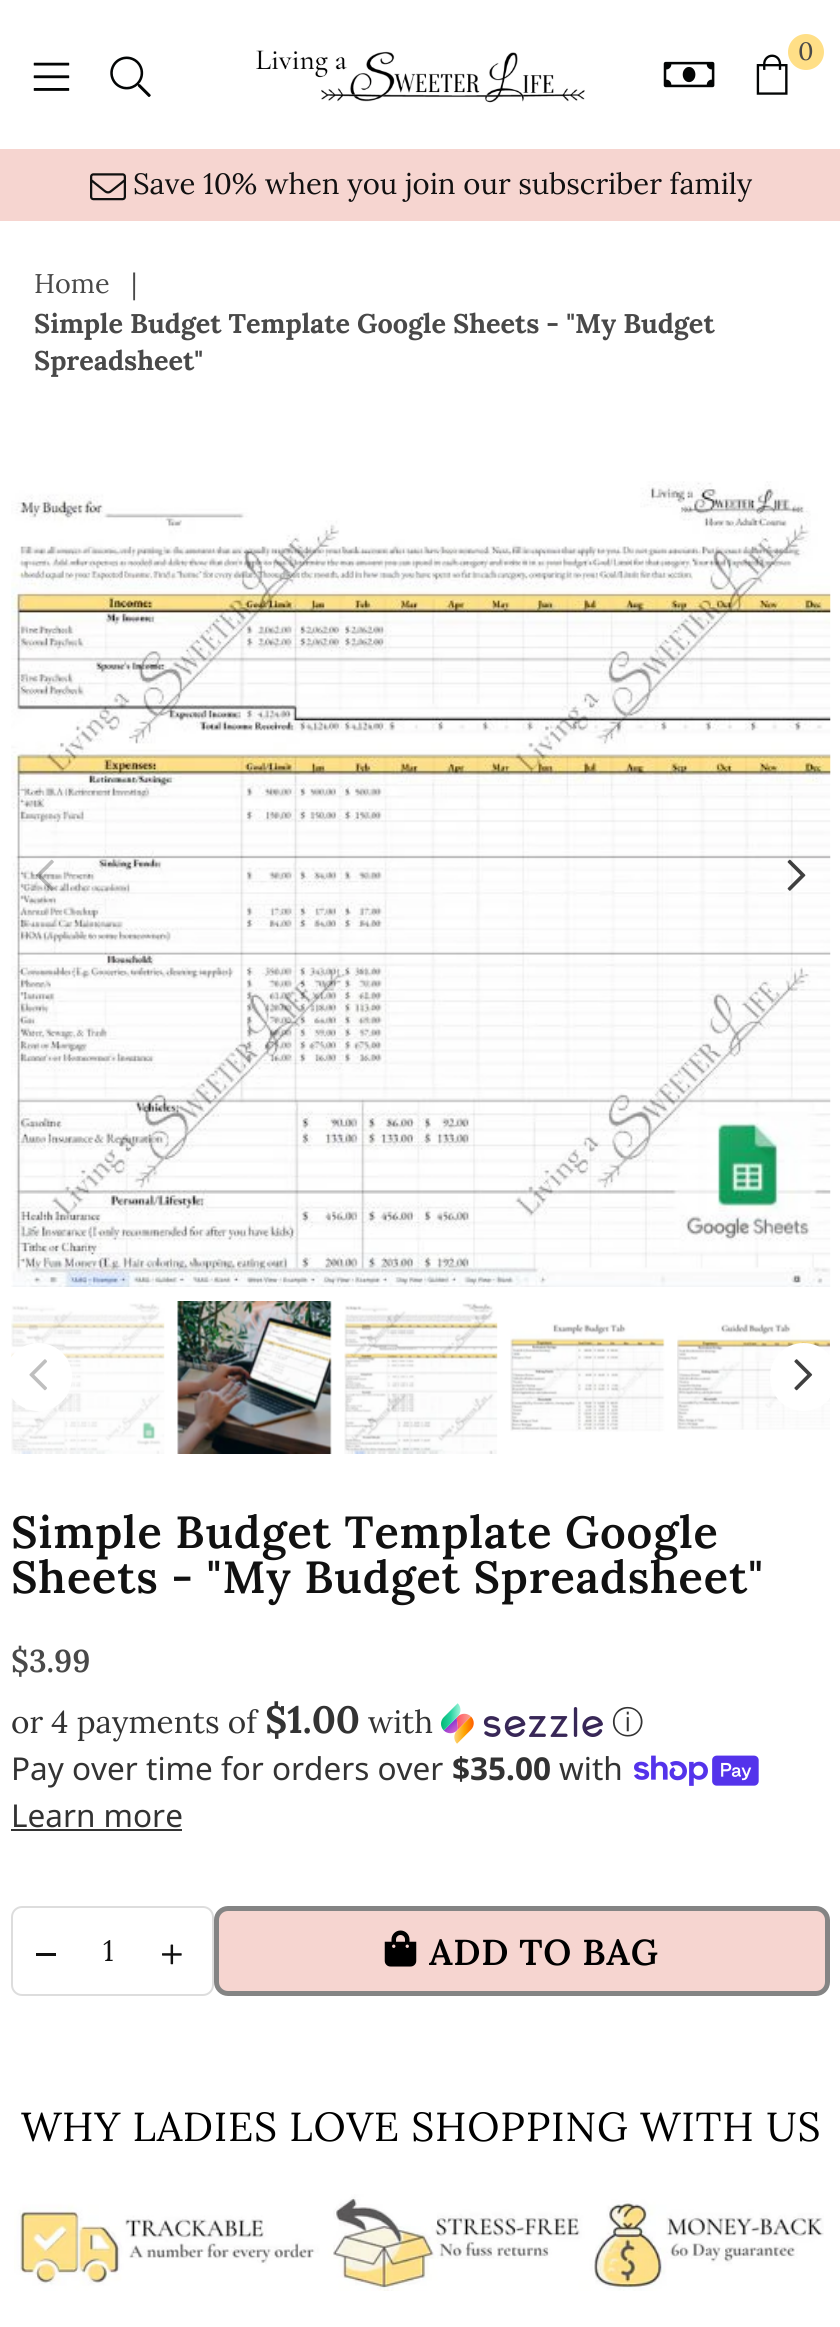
import math
import cairo

surface = cairo.ImageSurface(cairo.FORMAT_RGB24, 840, 2327)
ctx = cairo.Context(surface)
options = cairo.FontOptions()
options.set_hint_metrics(cairo.HINT_METRICS_OFF)
options.set_hint_style(cairo.HINT_STYLE_NONE)
ctx.set_font_options(options)
ctx.set_miter_limit(4)


def set_color(code):
    ctx.set_source_rgb(*(v / 255 for v in bytes.fromhex(code[-6:])))


def draw_text(x, y, s, family, size, color, bold=False, italic=False):
    ctx.select_font_face(family, cairo.FONT_SLANT_ITALIC if italic else cairo.FONT_SLANT_NORMAL, cairo.FONT_WEIGHT_BOLD if bold else cairo.FONT_WEIGHT_NORMAL)
    ctx.set_font_size(size)
    set_color(color)
    ctx.move_to(x, y)
    ctx.show_text(s)


def draw_spaced(x, y, s, letter, word):
    ctx.move_to(x, y)
    for ch in s:
        ctx.show_text(ch)
        ctx.rel_move_to(letter + word * (ch == ' '), 0)


def fill_rect(x, y, w, h, color):
    set_color(color)
    ctx.rectangle(x, y, w, h)
    ctx.fill()


def rounded_rect(x, y, w, h, r):
    ctx.new_sub_path()
    for i, (u, v) in enumerate([(x + w - r, y + h - r), (x + r, y + h - r), (x + r, y + r), (x + w - r, y + r)]):
        ctx.arc(u, v, r, i * math.pi / 2, (i + 1) * math.pi / 2)
    ctx.close_path()


def draw_image(path, x, y, w, h):
    ctx.save()
    ctx.set_source_surface(cairo.ImageSurface.create_from_png(path), x, y)
    ctx.rectangle(x, y, w, h)
    ctx.fill()
    ctx.restore()


set_color("#ffffff")
ctx.paint()
draw_image("assets/img1.png", 33, 62, 37, 29)
draw_image("assets/img2.png", 110, 56, 41, 41)
draw_image("assets/img3.png", 256, 50, 329, 53)
set_color("#ffdf87")
ctx.arc(806, 52, 18, 0, 2 * math.pi)
ctx.fill()
draw_text(798, 60, "0", "Lora", 25, "#494949")
draw_image("assets/img4.png", 756, 54, 32, 41)
draw_image("assets/img5.png", 663, 61, 52, 27)
fill_rect(0, 149, 840, 72, "#f6d5d0")
draw_image("assets/img6.png", 90, 173, 36, 28)
draw_text(133, 194, "Save 10% when you join our subscriber family", "Lora", 29.25, "#111111")
draw_text(34, 293, "Home", "Lora", 27, "#494949")
draw_text(131, 293, "|", "Lora", 27, "#494949")
draw_text(34, 333, "Simple Budget Template Google Sheets - \"My Budget", "Lora", 27, "#494949", bold=True)
draw_text(34, 370, "Spreadsheet\"", "Lora", 27, "#494949", bold=True)
draw_image("assets/img7.png", 11, 481, 820, 806)
draw_image("assets/img8.png", 36, 859, 18, 32)
draw_image("assets/img9.png", 787, 859, 19, 32)
draw_image("assets/img10.png", 11, 1303, 154, 151)
draw_image("assets/img11.png", 177, 1301, 155, 153)
draw_image("assets/img12.png", 344, 1303, 154, 151)
draw_image("assets/img13.png", 510, 1323, 155, 109)
draw_image("assets/img14.png", 677, 1323, 153, 107)
set_color("#ffffff")
rounded_rect(5, 1343, 67, 68, 33.5)
ctx.fill()
draw_image("assets/img15.png", 29, 1359, 18, 32)
rounded_rect(770, 1343, 67, 68, 33.5)
ctx.fill()
draw_image("assets/img16.png", 794, 1359, 19, 32)
ctx.select_font_face("Lora SemiBold")
ctx.set_font_size(45)
set_color("#111111")
draw_spaced(11, 1548, "Simple Budget Template Google", 0.9, 0)
draw_spaced(11, 1593, "Sheets - \"My Budget Spreadsheet\"", 0.9, 0)
draw_text(11, 1672, "$3.99", "Lora SemiBold", 31.5, "#494949")
draw_text(11, 1733, "or 4 payments of", "Lora", 31.5, "#333333")
draw_text(265, 1733, "$1.00", "Lora", 38, "#333333", bold=True)
draw_text(368, 1733, "with", "Lora", 31.5, "#333333")
draw_image("assets/img17.png", 441, 1703, 162, 41)
draw_text(612, 1733, "ⓘ", "WenQuanYi Zen Hei Medium", 31.5, "#333333")
draw_text(11, 1780, "Pay over time for orders over", "Noto Sans", 31.5, "#333333")
draw_text(452, 1780, "$35.00", "Noto Sans", 31.5, "#333333", bold=True)
draw_text(559, 1780, "with", "Noto Sans", 31.5, "#333333")
draw_image("assets/img18.png", 634, 1755, 125, 31)
draw_text(11, 1827, "Learn more", "Noto Sans", 31.5, "#333333")
fill_rect(11, 1829, 171, 2, "#333333")
rounded_rect(12, 1907, 201, 88, 10)
set_color("#dddddd")
ctx.stroke()
fill_rect(36, 1953, 20, 3, "#111111")
draw_text(103, 1961, "1", "Lora", 29.25, "#111111")
draw_image("assets/img19.png", 162, 1944, 20, 21)
set_color("#f6d5d0")
rounded_rect(216.5, 1908.5, 611, 85, 11.5)
ctx.fill_preserve()
set_color("#848484")
ctx.set_line_width(5)
ctx.stroke()
draw_image("assets/img20.png", 384, 1930, 33, 37)
ctx.select_font_face("Lora SemiBold")
ctx.set_font_size(36)
set_color("#000000")
draw_spaced(429, 1965, "ADD TO BAG", 0.75, 0)
ctx.select_font_face("Lora")
ctx.set_font_size(40.5)
draw_spaced(21, 2141, "WHY LADIES LOVE SHOPPING WITH US", 0.8, 0)
draw_image("assets/img21.png", 14, 2194, 810, 97)
surface.write_to_png("output.png")
